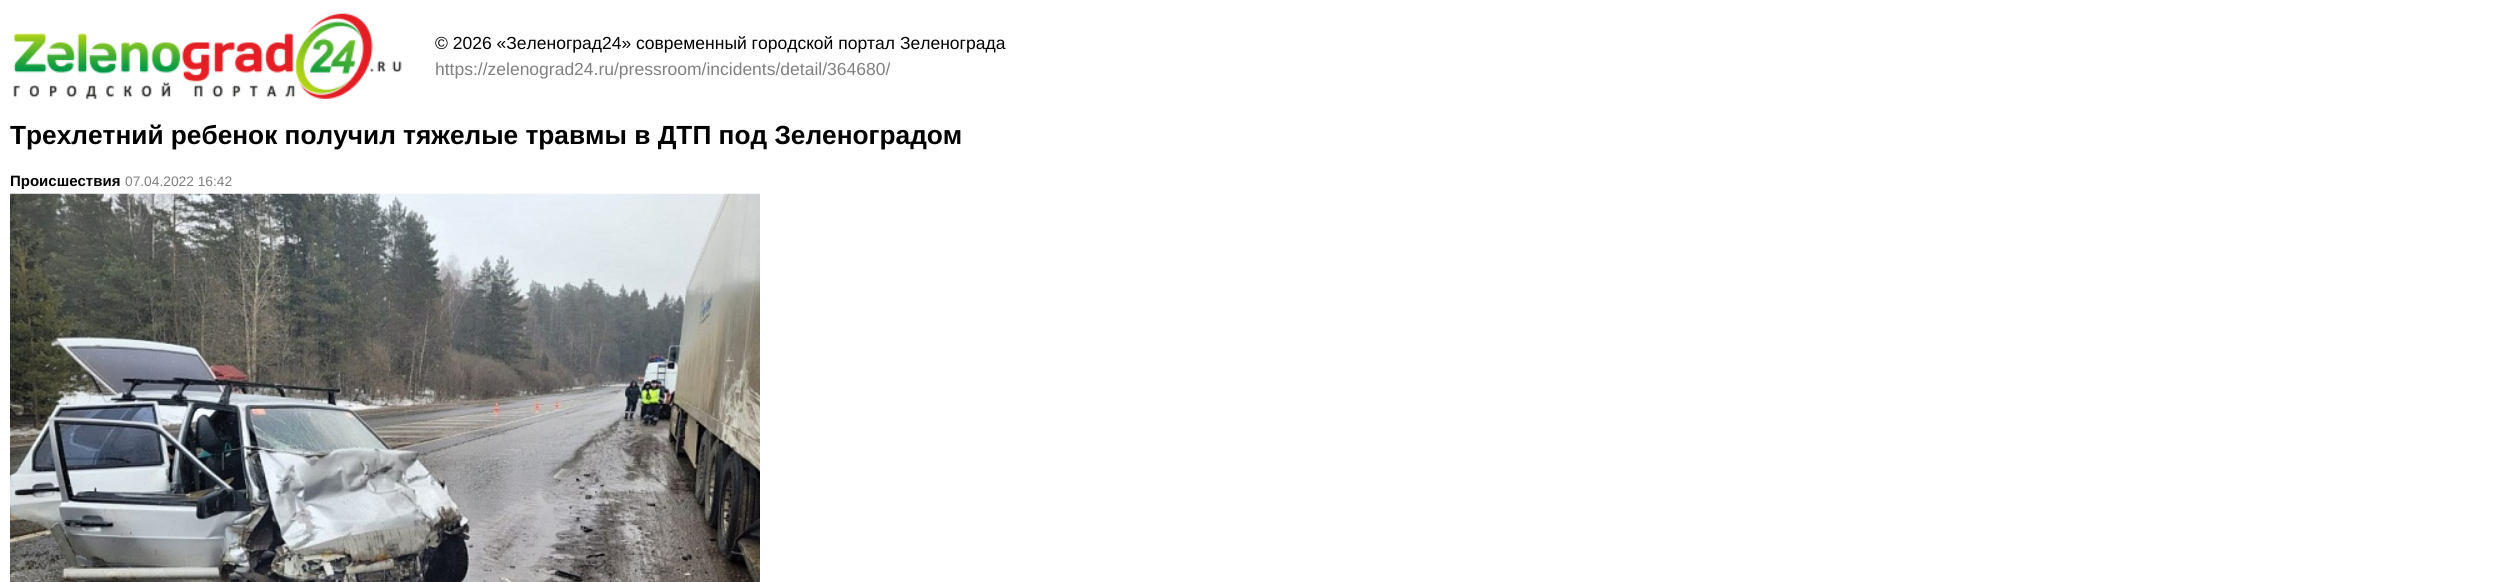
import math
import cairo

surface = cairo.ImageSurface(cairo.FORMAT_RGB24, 2511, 582)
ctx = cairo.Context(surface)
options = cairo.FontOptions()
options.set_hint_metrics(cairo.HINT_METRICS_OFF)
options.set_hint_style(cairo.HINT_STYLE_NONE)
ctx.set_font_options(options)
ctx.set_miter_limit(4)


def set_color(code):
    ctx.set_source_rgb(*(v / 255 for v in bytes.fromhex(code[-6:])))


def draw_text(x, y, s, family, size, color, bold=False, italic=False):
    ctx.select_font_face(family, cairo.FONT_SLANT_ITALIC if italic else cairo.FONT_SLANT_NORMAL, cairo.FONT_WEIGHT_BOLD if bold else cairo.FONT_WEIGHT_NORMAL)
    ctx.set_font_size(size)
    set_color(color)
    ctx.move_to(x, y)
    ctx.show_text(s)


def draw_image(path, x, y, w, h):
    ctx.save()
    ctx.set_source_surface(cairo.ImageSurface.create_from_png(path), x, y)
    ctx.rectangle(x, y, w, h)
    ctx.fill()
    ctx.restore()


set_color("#ffffff")
ctx.paint()
draw_image("assets/img1.png", 13, 13, 389, 86)
draw_text(435, 49, "© 2026 «Зеленоград24» современный городской портал Зеленограда", "Liberation Sans", 17.5, "#000000")
draw_text(435, 75, "https://zelenograd24.ru/pressroom/incidents/detail/364680/", "Liberation Sans", 17.5, "#808080")
draw_text(10, 144, "Трехлетний ребенок получил тяжелые травмы в ДТП под Зеленоградом", "Liberation Sans", 26.25, "#000000", bold=True)
draw_text(10, 186, "Происшествия", "Liberation Sans", 15, "#000000", bold=True)
draw_text(125, 186, "07.04.2022 16:42", "Liberation Sans", 13.75, "#808080")
draw_image("assets/img2.png", 10, 193, 750, 389)
surface.write_to_png("output.png")
